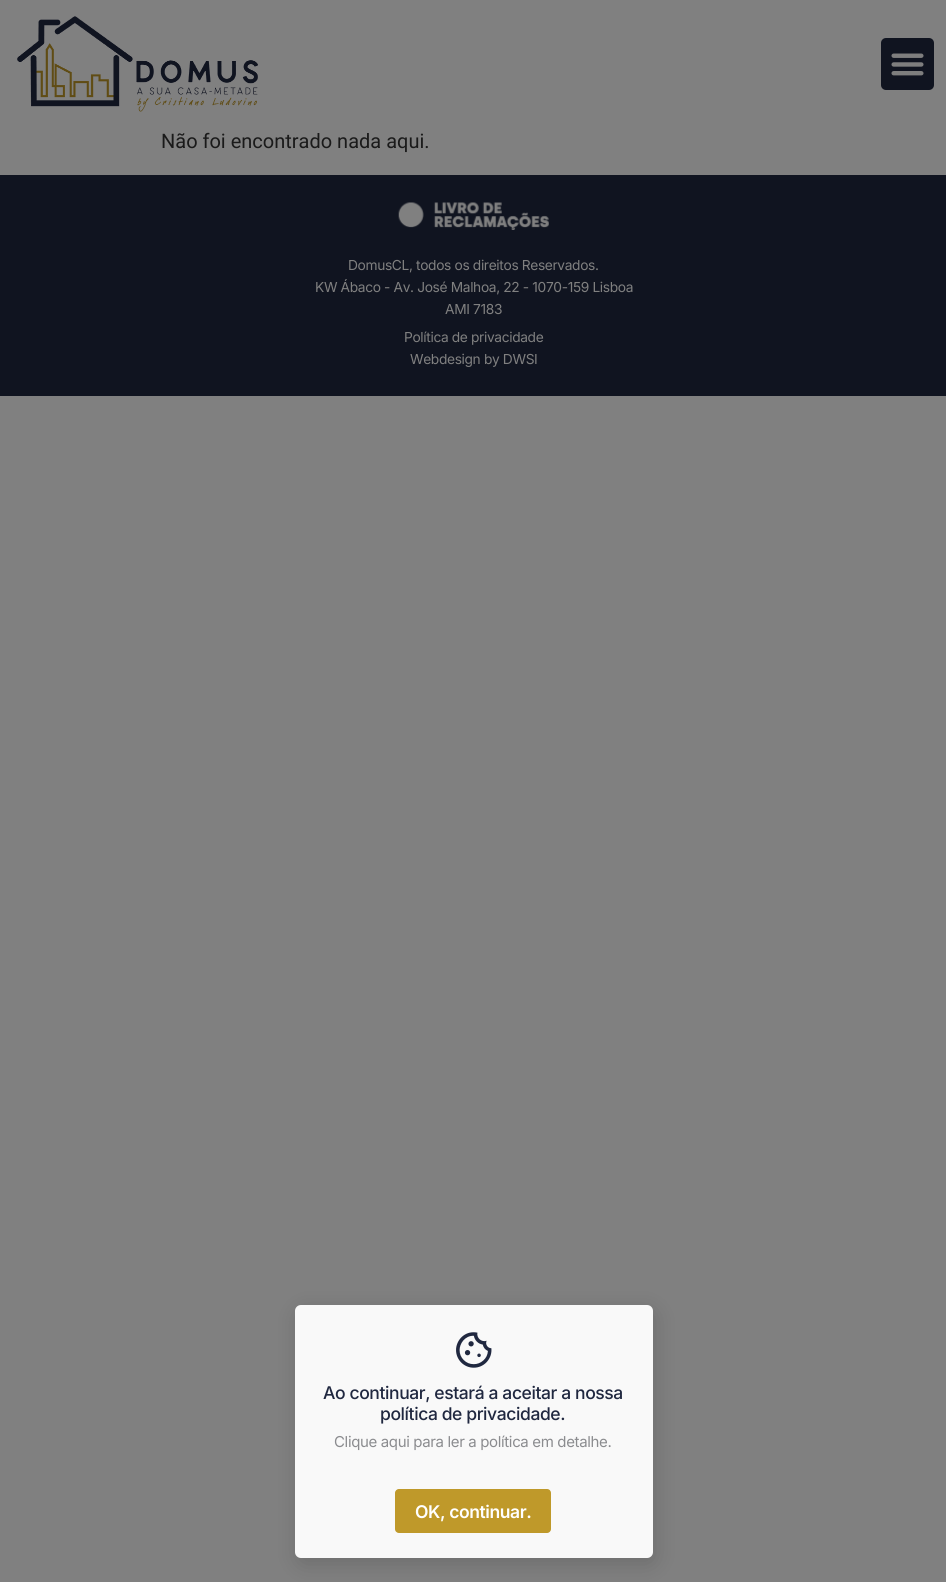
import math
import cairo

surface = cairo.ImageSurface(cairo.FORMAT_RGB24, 946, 1582)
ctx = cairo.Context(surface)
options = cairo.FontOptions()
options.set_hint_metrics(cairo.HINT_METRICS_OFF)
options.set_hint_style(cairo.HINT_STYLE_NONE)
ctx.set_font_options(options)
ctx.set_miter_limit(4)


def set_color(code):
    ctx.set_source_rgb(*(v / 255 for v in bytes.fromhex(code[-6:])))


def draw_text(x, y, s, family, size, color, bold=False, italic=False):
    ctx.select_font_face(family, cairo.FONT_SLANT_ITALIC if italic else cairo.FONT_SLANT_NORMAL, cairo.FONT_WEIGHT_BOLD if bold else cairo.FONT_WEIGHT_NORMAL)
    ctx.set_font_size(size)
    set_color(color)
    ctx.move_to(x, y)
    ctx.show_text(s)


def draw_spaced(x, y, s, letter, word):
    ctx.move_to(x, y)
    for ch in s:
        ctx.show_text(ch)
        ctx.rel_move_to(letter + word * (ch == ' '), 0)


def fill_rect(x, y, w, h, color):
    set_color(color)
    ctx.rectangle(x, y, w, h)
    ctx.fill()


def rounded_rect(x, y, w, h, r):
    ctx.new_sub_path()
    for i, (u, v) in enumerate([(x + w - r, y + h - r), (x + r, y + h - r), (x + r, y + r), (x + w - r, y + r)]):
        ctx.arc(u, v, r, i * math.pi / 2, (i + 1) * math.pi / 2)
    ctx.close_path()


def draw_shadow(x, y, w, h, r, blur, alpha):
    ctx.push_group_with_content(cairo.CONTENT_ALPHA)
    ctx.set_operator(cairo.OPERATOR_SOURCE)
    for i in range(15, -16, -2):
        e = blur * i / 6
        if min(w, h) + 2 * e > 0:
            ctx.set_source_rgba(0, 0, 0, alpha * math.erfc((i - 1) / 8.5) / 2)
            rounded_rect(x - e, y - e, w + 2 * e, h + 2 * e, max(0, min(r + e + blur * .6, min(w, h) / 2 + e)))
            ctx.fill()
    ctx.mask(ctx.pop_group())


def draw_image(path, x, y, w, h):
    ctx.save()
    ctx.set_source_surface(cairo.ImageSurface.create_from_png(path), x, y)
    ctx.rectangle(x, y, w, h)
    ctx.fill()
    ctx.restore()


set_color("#808080")
ctx.paint()
draw_image("assets/img1.png", 17, 16, 241, 96)
set_color("#101420")
rounded_rect(881, 38, 53, 52, 5)
ctx.fill()
draw_image("assets/img2.png", 891, 53, 33, 23)
draw_text(161, 148, "Não foi encontrado nada aqui.", "Roboto", 20, "#1a1a1a")
fill_rect(0, 175, 946, 221, "#101420")
draw_image("assets/img3.png", 398, 202, 151, 28)
ctx.select_font_face("Inter")
ctx.set_font_size(13.75)
set_color("#808080")
draw_spaced(348, 270, "DomusCL, todos os direitos Reservados.", -0.35, 0)
draw_spaced(315, 292, "KW Ábaco - Av. José Malhoa, 22 - 1070-159 Lisboa", -0.35, 0)
draw_spaced(445, 314, "AMI 7183", -0.35, 0)
draw_spaced(404, 342, "Política de privacidade", -0.35, 0)
draw_spaced(410, 364, "Webdesign by DWSI", -0.35, 0)
ctx.save()
ctx.set_fill_rule(cairo.FILL_RULE_EVEN_ODD)
ctx.new_path()
ctx.move_to(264, 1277)
ctx.line_to(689, 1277)
ctx.line_to(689, 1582)
ctx.line_to(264, 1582)
ctx.close_path()
ctx.move_to(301, 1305)
ctx.line_to(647, 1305)
ctx.curve_to(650.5, 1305, 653, 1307.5, 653, 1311)
ctx.line_to(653, 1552)
ctx.curve_to(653, 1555.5, 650.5, 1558, 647, 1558)
ctx.line_to(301, 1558)
ctx.curve_to(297.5, 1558, 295, 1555.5, 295, 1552)
ctx.line_to(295, 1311)
ctx.curve_to(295, 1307.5, 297.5, 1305, 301, 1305)
ctx.close_path()
ctx.clip()
set_color("#000000")
draw_shadow(298, 1311, 357, 253, 6, 11, 0.15)
ctx.restore()
ctx.set_source_rgba(1, 1, 1, 0.95)
rounded_rect(295, 1305, 358, 253, 6)
ctx.fill()
draw_image("assets/img4.png", 456, 1332, 36, 36)
ctx.select_font_face("Inter Medium")
ctx.set_font_size(17.5)
set_color("#202840")
draw_spaced(323, 1399, "Ao continuar, estará a aceitar a nossa", -0.4, 0)
draw_spaced(380, 1420, "política de privacidade.", -0.4, 0)
ctx.select_font_face("Inter")
ctx.set_font_size(15)
set_color("#8b8c8f")
draw_spaced(334, 1447, "Clique aqui para ler a política em detalhe.", -0.35, 0)
set_color("#bf992a")
rounded_rect(395, 1489, 156, 44, 4)
ctx.fill()
ctx.select_font_face("Inter SemiBold")
ctx.set_font_size(17.5)
set_color("#ffffff")
draw_spaced(415, 1518, "OK, continuar.", -0.4, 0)
surface.write_to_png("output.png")
